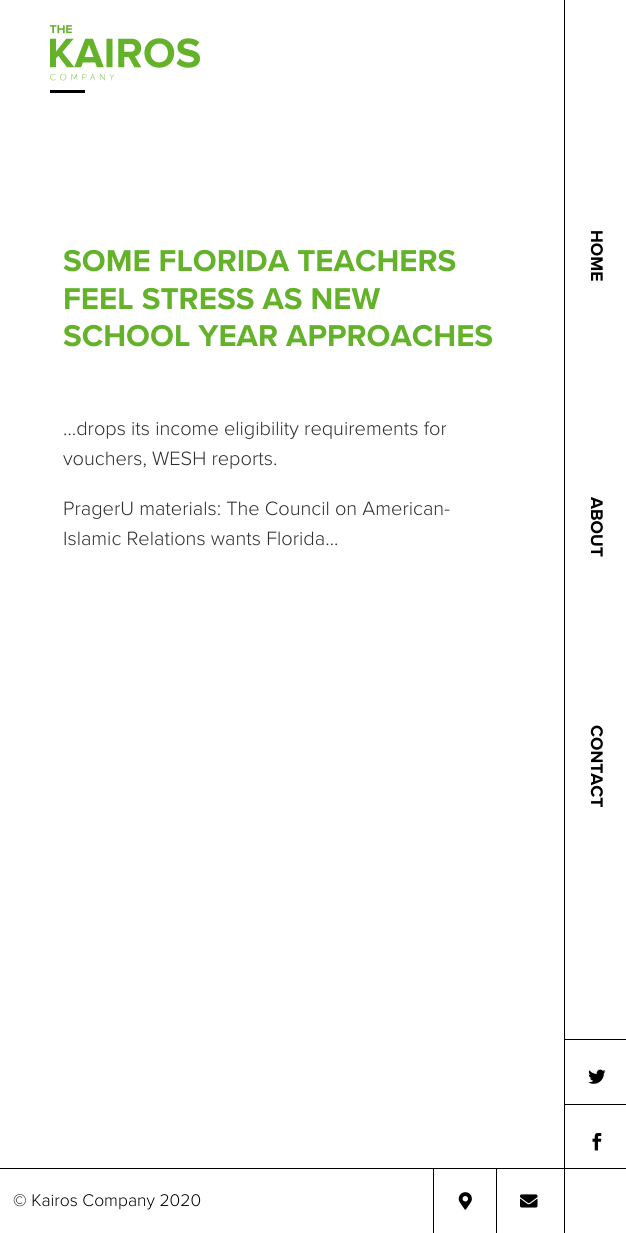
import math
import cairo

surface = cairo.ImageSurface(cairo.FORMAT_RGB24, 626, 1233)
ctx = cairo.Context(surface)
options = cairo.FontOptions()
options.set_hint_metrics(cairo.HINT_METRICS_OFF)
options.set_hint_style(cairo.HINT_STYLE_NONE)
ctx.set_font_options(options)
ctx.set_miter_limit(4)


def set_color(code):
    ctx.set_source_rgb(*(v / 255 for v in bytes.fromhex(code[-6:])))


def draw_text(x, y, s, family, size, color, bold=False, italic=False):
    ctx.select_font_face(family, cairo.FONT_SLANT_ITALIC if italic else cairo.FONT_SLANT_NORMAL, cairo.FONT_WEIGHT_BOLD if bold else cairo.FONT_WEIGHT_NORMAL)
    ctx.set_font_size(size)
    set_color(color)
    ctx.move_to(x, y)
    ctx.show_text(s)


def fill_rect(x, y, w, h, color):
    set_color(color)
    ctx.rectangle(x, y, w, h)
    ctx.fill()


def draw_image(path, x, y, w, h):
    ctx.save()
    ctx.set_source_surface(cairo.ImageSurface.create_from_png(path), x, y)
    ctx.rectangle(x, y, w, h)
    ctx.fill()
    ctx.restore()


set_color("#ffffff")
ctx.paint()
draw_text(63, 271, "SOME FLORIDA TEACHERS", "Proxima Nova", 31.25, "#63b22a", bold=True)
draw_text(63, 309, "FEEL STRESS AS NEW", "Proxima Nova", 31.25, "#63b22a", bold=True)
draw_text(63, 346, "SCHOOL YEAR APPROACHES", "Proxima Nova", 31.25, "#63b22a", bold=True)
draw_text(63, 435, "…drops its income eligibility requirements for", "Proxima Nova Light", 20, "#2e2e2e")
draw_text(63, 465, "vouchers, WESH reports.", "Proxima Nova Light", 20, "#2e2e2e")
draw_text(63, 515, "PragerU materials: The Council on American-", "Proxima Nova Light", 20, "#2e2e2e")
draw_text(63, 545, "Islamic Relations wants Florida…", "Proxima Nova Light", 20, "#2e2e2e")
fill_rect(0, 1168, 626, 1, "#000000")
draw_text(13, 1206, "© Kairos Company 2020", "Proxima Nova Light", 17.5, "#000000")
fill_rect(433, 1169, 1, 64, "#000000")
draw_image("assets/img1.png", 458, 1192, 14, 18)
fill_rect(496, 1169, 1, 64, "#000000")
draw_image("assets/img2.png", 520, 1194, 18, 14)
draw_image("assets/img3.png", 50, 25, 150, 68)
fill_rect(564, 0, 1, 1233, "#000000")
ctx.save()
ctx.translate(591, 230)
ctx.rotate(90 * math.pi / 180)
draw_text(0, 0, "HOME", "Proxima Nova", 17.5, "#000000", bold=True)
ctx.restore()
ctx.save()
ctx.translate(591, 497)
ctx.rotate(90 * math.pi / 180)
draw_text(0, 0, "ABOUT", "Proxima Nova", 17.5, "#000000", bold=True)
ctx.restore()
ctx.save()
ctx.translate(591, 725)
ctx.rotate(90 * math.pi / 180)
draw_text(0, 0, "CONTACT", "Proxima Nova", 17.5, "#000000", bold=True)
ctx.restore()
fill_rect(565, 1039, 61, 1, "#000000")
draw_image("assets/img4.png", 588, 1069, 18, 15)
fill_rect(565, 1104, 61, 1, "#000000")
draw_image("assets/img5.png", 592, 1133, 10, 18)
surface.write_to_png("output.png")
